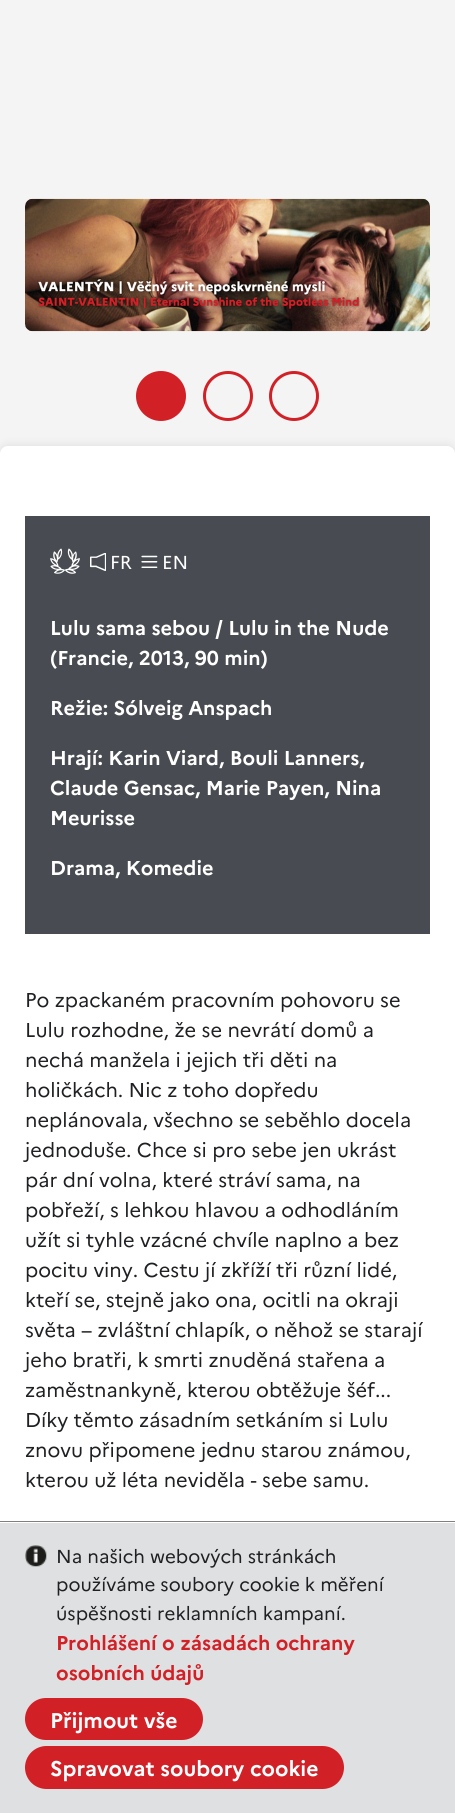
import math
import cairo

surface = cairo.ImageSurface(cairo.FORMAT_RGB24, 455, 1813)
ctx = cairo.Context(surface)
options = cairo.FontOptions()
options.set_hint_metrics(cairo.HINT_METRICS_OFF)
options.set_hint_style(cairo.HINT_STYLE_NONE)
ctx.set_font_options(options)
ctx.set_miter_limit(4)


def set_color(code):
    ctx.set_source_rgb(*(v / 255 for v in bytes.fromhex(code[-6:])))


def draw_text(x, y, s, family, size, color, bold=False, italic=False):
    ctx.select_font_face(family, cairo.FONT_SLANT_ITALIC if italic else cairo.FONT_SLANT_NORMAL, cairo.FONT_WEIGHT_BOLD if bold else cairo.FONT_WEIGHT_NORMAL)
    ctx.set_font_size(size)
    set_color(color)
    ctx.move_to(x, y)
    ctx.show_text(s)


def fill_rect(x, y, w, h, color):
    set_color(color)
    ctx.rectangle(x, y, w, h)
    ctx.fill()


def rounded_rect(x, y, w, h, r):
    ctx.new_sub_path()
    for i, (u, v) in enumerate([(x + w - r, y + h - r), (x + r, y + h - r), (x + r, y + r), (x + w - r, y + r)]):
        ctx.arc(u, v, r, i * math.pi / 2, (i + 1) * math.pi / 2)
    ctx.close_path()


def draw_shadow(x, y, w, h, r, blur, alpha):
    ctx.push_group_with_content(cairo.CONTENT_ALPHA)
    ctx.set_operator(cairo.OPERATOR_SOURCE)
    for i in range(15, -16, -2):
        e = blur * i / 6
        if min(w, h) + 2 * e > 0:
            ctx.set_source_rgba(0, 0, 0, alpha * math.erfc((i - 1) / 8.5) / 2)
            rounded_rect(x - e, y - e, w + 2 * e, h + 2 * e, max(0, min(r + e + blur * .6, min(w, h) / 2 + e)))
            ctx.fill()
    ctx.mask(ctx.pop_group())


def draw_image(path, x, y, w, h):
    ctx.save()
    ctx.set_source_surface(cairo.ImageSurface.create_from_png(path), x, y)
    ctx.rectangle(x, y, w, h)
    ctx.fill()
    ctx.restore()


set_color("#f4f4f4")
ctx.paint()
draw_image("assets/img1.png", 25, 198, 405, 134)
set_color("#d22027")
ctx.arc(161, 396, 23.5, 0, 2 * math.pi)
ctx.fill_preserve()
ctx.set_line_width(3)
ctx.stroke()
ctx.arc(228, 396, 23.5, 0, 2 * math.pi)
ctx.stroke()
ctx.arc(294, 396, 23.5, 0, 2 * math.pi)
ctx.stroke()
set_color("#000000")
draw_shadow(0, 446, 455, 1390, 8, 5, 0.1)
set_color("#ffffff")
rounded_rect(0, 446, 455, 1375, 8)
ctx.fill()
fill_rect(25, 516, 405, 418, "#484c52")
draw_image("assets/img2.png", 50, 548, 30, 26)
draw_image("assets/img3.png", 90, 553, 16, 18)
draw_text(110, 569, "FR", "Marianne", 18.75, "#ffffff")
draw_image("assets/img4.png", 141, 555, 17, 13)
draw_text(162, 569, "EN", "Marianne", 18.75, "#ffffff")
draw_text(50, 635, "Lulu sama sebou / Lulu in the Nude", "Marianne", 20, "#ffffff", bold=True)
draw_text(50, 665, "(Francie, 2013, 90 min)", "Marianne", 20, "#ffffff", bold=True)
draw_text(50, 715, "Režie: Sólveig Anspach", "Marianne", 20, "#ffffff", bold=True)
draw_text(50, 765, "Hrají: Karin Viard, Bouli Lanners,", "Marianne", 20, "#ffffff", bold=True)
draw_text(50, 795, "Claude Gensac, Marie Payen, Nina", "Marianne", 20, "#ffffff", bold=True)
draw_text(50, 825, "Meurisse", "Marianne", 20, "#ffffff", bold=True)
draw_text(50, 875, "Drama, Komedie", "Marianne", 20, "#ffffff", bold=True)
draw_text(25, 1007, "Po zpackaném pracovním pohovoru se", "Marianne", 20, "#1f2023")
draw_text(25, 1037, "Lulu rozhodne, že se nevrátí domů a", "Marianne", 20, "#1f2023")
draw_text(25, 1067, "nechá manžela i jejich tři děti na", "Marianne", 20, "#1f2023")
draw_text(25, 1097, "holičkách. Nic z toho dopředu", "Marianne", 20, "#1f2023")
draw_text(25, 1127, "neplánovala, všechno se seběhlo docela", "Marianne", 20, "#1f2023")
draw_text(25, 1157, "jednoduše. Chce si pro sebe jen ukrást", "Marianne", 20, "#1f2023")
draw_text(25, 1187, "pár dní volna, které stráví sama, na", "Marianne", 20, "#1f2023")
draw_text(25, 1217, "pobřeží, s lehkou hlavou a odhodláním", "Marianne", 20, "#1f2023")
draw_text(25, 1247, "užít si tyhle vzácné chvíle naplno a bez", "Marianne", 20, "#1f2023")
draw_text(25, 1277, "pocitu viny. Cestu jí zkříží tři různí lidé,", "Marianne", 20, "#1f2023")
draw_text(25, 1307, "kteří se, stejně jako ona, ocitli na okraji", "Marianne", 20, "#1f2023")
draw_text(25, 1337, "světa – zvláštní chlapík, o něhož se starají", "Marianne", 20, "#1f2023")
draw_text(25, 1367, "jeho bratři, k smrti znuděná stařena a", "Marianne", 20, "#1f2023")
draw_text(25, 1397, "zaměstnankyně, kterou obtěžuje šéf...", "Marianne", 20, "#1f2023")
draw_text(25, 1427, "Díky těmto zásadním setkáním si Lulu", "Marianne", 20, "#1f2023")
draw_text(25, 1457, "znovu připomene jednu starou známou,", "Marianne", 20, "#1f2023")
draw_text(25, 1487, "kterou už léta neviděla - sebe samu.", "Marianne", 20, "#1f2023")
fill_rect(0, 1521, 455, 1, "#808080")
fill_rect(0, 1523, 455, 290, "#dfe0e1")
draw_image("assets/img5.png", 25, 1545, 22, 22)
draw_text(56, 1563, "Na našich webových stránkách", "Marianne", 18.75, "#1f2023")
draw_text(56, 1591, "používáme soubory cookie k měření", "Marianne", 18.75, "#1f2023")
draw_text(56, 1620, "úspěšnosti reklamních kampaní.", "Marianne", 18.75, "#1f2023")
draw_text(56, 1650, "Prohlášení o zásadách ochrany", "Marianne", 20, "#d22027", bold=True)
draw_text(56, 1680, "osobních údajů", "Marianne", 20, "#d22027", bold=True)
rounded_rect(25, 1698, 178, 42, 21)
ctx.fill()
draw_text(50, 1728, "Přijmout vše", "Marianne", 21.25, "#ffffff", bold=True)
set_color("#d22027")
rounded_rect(25, 1746, 319, 43, 21.5)
ctx.fill()
draw_text(50, 1776, "Spravovat soubory cookie", "Marianne", 21.25, "#ffffff", bold=True)
surface.write_to_png("output.png")
